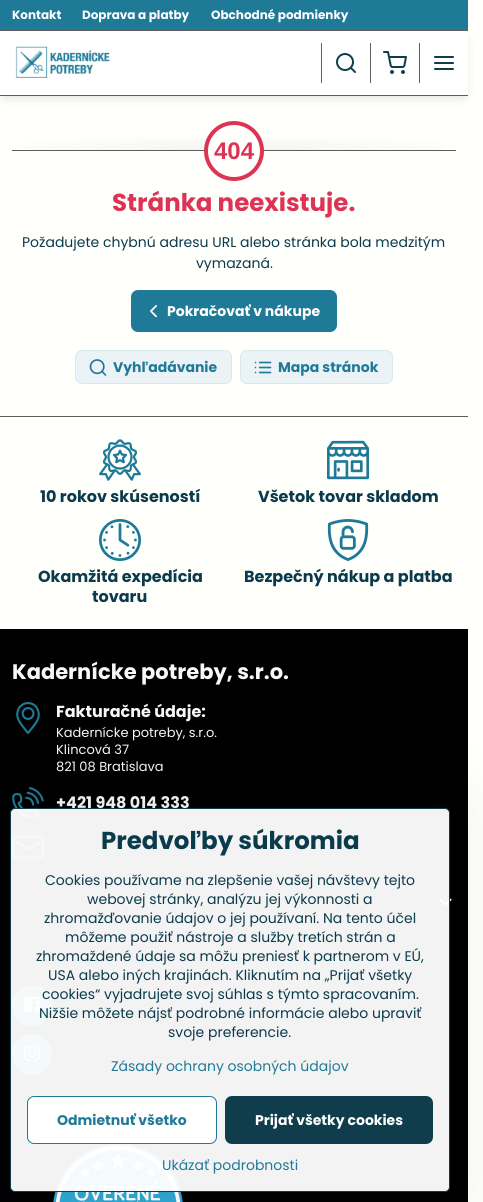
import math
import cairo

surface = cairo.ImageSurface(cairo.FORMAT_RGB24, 483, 1202)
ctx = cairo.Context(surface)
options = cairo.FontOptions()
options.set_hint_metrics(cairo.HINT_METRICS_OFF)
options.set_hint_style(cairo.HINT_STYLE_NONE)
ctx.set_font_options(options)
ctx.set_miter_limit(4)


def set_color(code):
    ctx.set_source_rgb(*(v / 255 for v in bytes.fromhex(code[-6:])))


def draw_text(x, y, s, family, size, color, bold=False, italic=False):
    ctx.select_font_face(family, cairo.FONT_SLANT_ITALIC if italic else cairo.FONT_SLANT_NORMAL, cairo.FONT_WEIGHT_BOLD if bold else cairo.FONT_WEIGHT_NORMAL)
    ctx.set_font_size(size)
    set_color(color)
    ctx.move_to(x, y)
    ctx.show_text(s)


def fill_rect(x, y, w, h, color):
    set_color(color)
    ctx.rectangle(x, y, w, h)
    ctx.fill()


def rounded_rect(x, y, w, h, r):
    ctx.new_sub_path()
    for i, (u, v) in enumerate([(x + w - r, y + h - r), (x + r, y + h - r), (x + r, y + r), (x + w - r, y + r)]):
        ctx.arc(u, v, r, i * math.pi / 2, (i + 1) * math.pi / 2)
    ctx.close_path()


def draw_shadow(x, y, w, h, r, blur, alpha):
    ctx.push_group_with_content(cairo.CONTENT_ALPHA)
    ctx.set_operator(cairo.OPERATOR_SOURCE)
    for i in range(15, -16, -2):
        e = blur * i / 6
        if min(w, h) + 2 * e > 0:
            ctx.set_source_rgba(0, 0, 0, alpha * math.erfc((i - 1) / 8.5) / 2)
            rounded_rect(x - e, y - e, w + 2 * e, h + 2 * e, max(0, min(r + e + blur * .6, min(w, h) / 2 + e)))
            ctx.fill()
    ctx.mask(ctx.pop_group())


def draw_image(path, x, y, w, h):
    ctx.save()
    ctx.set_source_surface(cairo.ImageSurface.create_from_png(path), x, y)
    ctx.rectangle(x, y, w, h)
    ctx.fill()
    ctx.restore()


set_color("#fffffc")
ctx.paint()
fill_rect(0, 0, 468, 30, "#1f7a98")
fill_rect(0, 30, 468, 1, "#5e5e5e")
draw_text(12, 19, "Kontakt", "Poppins", 12, "#ffffff", bold=True)
draw_text(82, 19, "Doprava a platby", "Poppins", 12, "#ffffff", bold=True)
draw_text(211, 19, "Obchodné podmienky", "Poppins", 12, "#ffffff", bold=True)
set_color("#000014")
draw_shadow(4, 39, 460, 57, 0, 6, 0.15)
fill_rect(0, 31, 468, 64, "#ffffff")
fill_rect(0, 95, 468, 1, "#5e5e5e")
draw_image("assets/img1.png", 15, 46, 96, 32)
fill_rect(321, 43, 1, 40, "#5e5e5e")
draw_image("assets/img2.png", 336, 53, 20, 20)
fill_rect(370, 43, 1, 40, "#5e5e5e")
draw_image("assets/img3.png", 383, 51, 24, 23)
fill_rect(419, 43, 1, 40, "#5e5e5e")
draw_image("assets/img4.png", 434, 56, 20, 14)
fill_rect(12, 150, 444, 1, "#5e5e5e")
gradient = cairo.RadialGradient(0, 0, 0, 0, 0, 1)
gradient.set_matrix(cairo.Matrix(1 / 377, 0, 0, 1 / 23, -1 * 234 / 377, -1 * 150 / 23))
gradient.add_color_stop_rgba(0, 0.953, 0.961, 0.953, 1)
gradient.add_color_stop_rgba(0.7, 1, 1, 0.988, 1)
ctx.set_source(gradient)
ctx.rectangle(25, 137, 418, 13)
ctx.fill()
set_color("#fffffc")
ctx.arc(234, 151, 28, 0, 2 * math.pi)
ctx.fill_preserve()
set_color("#dd3355")
ctx.set_line_width(4)
ctx.stroke()
draw_text(214, 159, "404", "Liberation Sans", 24, "#dd3355", bold=True)
draw_text(112, 211, "Stránka neexistuje.", "Poppins", 24.5, "#dd3355", bold=True)
draw_text(22, 247, "Požadujete chybnú adresu URL alebo stránka bola medzitým", "Poppins", 14, "#0a3b4c")
draw_text(196, 268, "vymazaná.", "Poppins", 14, "#0a3b4c")
set_color("#1f7a98")
rounded_rect(131, 290, 206, 42, 7)
ctx.fill()
draw_image("assets/img5.png", 150, 305, 7, 13)
draw_text(167, 316, "Pokračovať v nákupe", "Poppins", 14, "#ffffff", bold=True)
set_color("#ebf3f6")
rounded_rect(75, 350, 157, 34, 7)
ctx.fill()
rounded_rect(75.5, 350.5, 156, 33, 6.5)
ctx.set_source_rgba(0.122, 0.478, 0.596, 0.09)
ctx.set_line_width(1)
ctx.stroke()
draw_image("assets/img6.png", 89, 359, 18, 17)
draw_text(113, 372, "Vyhľadávanie", "Poppins", 14, "#1f7a98", bold=True)
set_color("#ebf3f6")
rounded_rect(240, 350, 153, 34, 7)
ctx.fill()
rounded_rect(240.5, 350.5, 152, 33, 6.5)
ctx.set_source_rgba(0.122, 0.478, 0.596, 0.09)
ctx.stroke()
draw_image("assets/img7.png", 254, 361, 18, 13)
draw_text(278, 372, "Mapa stránok", "Poppins", 14, "#1f7a98", bold=True)
fill_rect(0, 416, 468, 1, "#5e5e5e")
draw_image("assets/img8.png", 99, 439, 42, 42)
draw_text(40, 502, "10 rokov skúseností", "Poppins", 16, "#0a3b4c", bold=True)
draw_image("assets/img9.png", 327, 440, 42, 40)
draw_text(258, 502, "Všetok tovar skladom", "Poppins", 16, "#0a3b4c", bold=True)
draw_image("assets/img10.png", 99, 519, 42, 42)
draw_text(38, 582, "Okamžitá expedícia", "Poppins", 16, "#0a3b4c", bold=True)
draw_text(92, 602, "tovaru", "Poppins", 16, "#0a3b4c", bold=True)
draw_image("assets/img11.png", 327, 519, 42, 42)
draw_text(244, 582, "Bezpečný nákup a platba", "Poppins", 16, "#0a3b4c", bold=True)
fill_rect(0, 629, 468, 573, "#000000")
draw_text(12, 679, "Kadernícke potreby, s.r.o.", "Poppins", 21, "#f8f8f8", bold=True)
draw_image("assets/img12.png", 16, 702, 24, 32)
draw_text(56, 717, "Fakturačné údaje:", "Poppins", 16, "#f8f8f8", bold=True)
draw_text(56, 737, "Kadernícke potreby, s.r.o.", "Poppins", 13, "#f8f8f8")
draw_text(56, 754, "Klincová 37", "Poppins", 13, "#f8f8f8")
draw_text(56, 771, "821 08 Bratislava", "Poppins", 13, "#f8f8f8")
draw_image("assets/img13.png", 12, 787, 32, 32)
draw_text(56, 808, "+421 948 014 333", "Poppins", 16, "#f8f8f8", bold=True)
draw_image("assets/img14.png", 12, 835, 32, 24)
draw_image("assets/img15.png", 439, 898, 13, 8)
set_color("#1f7a98")
rounded_rect(12, 985, 40, 41, 20)
ctx.fill()
draw_image("assets/img16.png", 24, 996, 16, 17)
rounded_rect(12, 1034, 40, 41, 20)
ctx.fill()
draw_image("assets/img17.png", 24, 1045, 16, 17)
draw_image("assets/img18.png", 53, 1144, 130, 58)
ctx.save()
ctx.set_fill_rule(cairo.FILL_RULE_EVEN_ODD)
ctx.new_path()
ctx.move_to(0, 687)
ctx.line_to(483, 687)
ctx.line_to(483, 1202)
ctx.line_to(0, 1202)
ctx.close_path()
ctx.move_to(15, 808)
ctx.line_to(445, 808)
ctx.curve_to(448, 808, 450, 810, 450, 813)
ctx.line_to(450, 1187)
ctx.curve_to(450, 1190, 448, 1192, 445, 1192)
ctx.line_to(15, 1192)
ctx.curve_to(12, 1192, 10, 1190, 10, 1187)
ctx.line_to(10, 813)
ctx.curve_to(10, 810, 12, 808, 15, 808)
ctx.close_path()
ctx.clip()
set_color("#000000")
draw_shadow(10, 808, 440, 384, 5, 40, 0.1)
ctx.restore()
ctx.set_source_rgba(1, 1, 1, 0.95)
rounded_rect(10.5, 808.5, 439, 383, 4.5)
ctx.fill_preserve()
set_color("#0f3d4c")
ctx.stroke()
draw_text(101, 849, "Predvoľby súkromia", "Poppins", 24.5, "#0a3b4c", bold=True)
draw_text(45, 885, "Cookies používame na zlepšenie vašej návštevy tejto", "Poppins", 14, "#0a3b4c")
draw_text(87, 904, "webovej stránky, analýzu jej výkonnosti a", "Poppins", 14, "#0a3b4c")
draw_text(44, 923, "zhromažďovanie údajov o jej používaní. Na tento účel", "Poppins", 14, "#0a3b4c")
draw_text(65, 942, "môžeme použiť nástroje a služby tretích strán a", "Poppins", 14, "#0a3b4c")
draw_text(36, 961, "zhromaždené údaje sa môžu preniesť k partnerom v EÚ,", "Poppins", 14, "#0a3b4c")
draw_text(48, 980, "USA alebo iných krajinách. Kliknutím na „Prijať všetky", "Poppins", 14, "#0a3b4c")
draw_text(42, 999, "cookies“ vyjadrujete svoj súhlas s týmto spracovaním.", "Poppins", 14, "#0a3b4c")
draw_text(39, 1018, "Nižšie môžete nájsť podrobné informácie alebo upraviť", "Poppins", 14, "#0a3b4c")
draw_text(168, 1037, "svoje preferencie.", "Poppins", 14, "#0a3b4c")
draw_text(111, 1071, "Zásady ochrany osobných údajov", "Poppins", 14, "#1f7a98")
set_color("#ffffff")
rounded_rect(27.5, 1096.5, 189, 47, 6.5)
ctx.fill_preserve()
set_color("#1f7a98")
ctx.stroke()
draw_text(57, 1125, "Odmietnuť všetko", "Poppins", 14, "#1f7a98", bold=True)
set_color("#0f3d4c")
rounded_rect(225, 1096, 208, 48, 7)
ctx.fill()
draw_text(255, 1125, "Prijať všetky cookies", "Poppins", 14, "#ffffff", bold=True)
draw_text(162, 1170, "Ukázať podrobnosti", "Poppins", 14, "#1f7a98")
surface.write_to_png("output.png")
